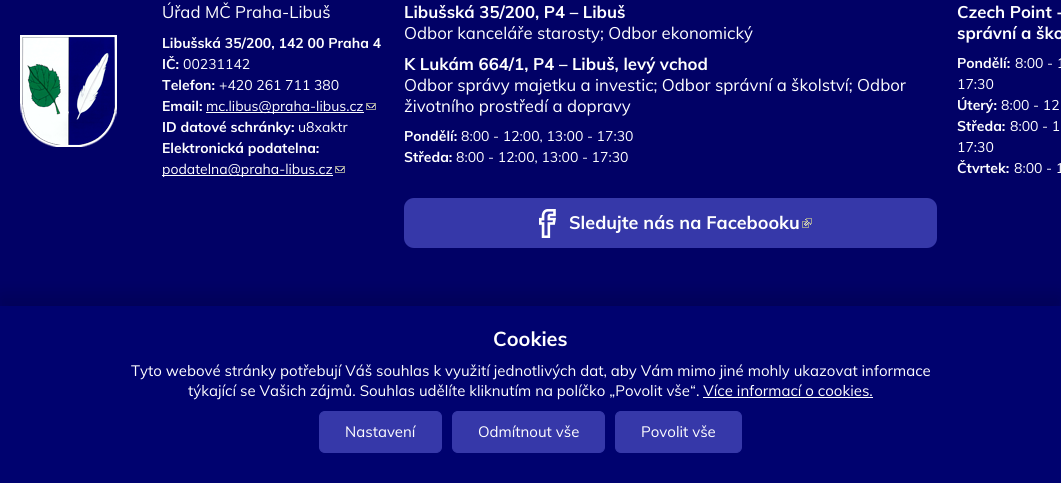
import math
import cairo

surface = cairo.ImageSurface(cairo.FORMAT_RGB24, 1061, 483)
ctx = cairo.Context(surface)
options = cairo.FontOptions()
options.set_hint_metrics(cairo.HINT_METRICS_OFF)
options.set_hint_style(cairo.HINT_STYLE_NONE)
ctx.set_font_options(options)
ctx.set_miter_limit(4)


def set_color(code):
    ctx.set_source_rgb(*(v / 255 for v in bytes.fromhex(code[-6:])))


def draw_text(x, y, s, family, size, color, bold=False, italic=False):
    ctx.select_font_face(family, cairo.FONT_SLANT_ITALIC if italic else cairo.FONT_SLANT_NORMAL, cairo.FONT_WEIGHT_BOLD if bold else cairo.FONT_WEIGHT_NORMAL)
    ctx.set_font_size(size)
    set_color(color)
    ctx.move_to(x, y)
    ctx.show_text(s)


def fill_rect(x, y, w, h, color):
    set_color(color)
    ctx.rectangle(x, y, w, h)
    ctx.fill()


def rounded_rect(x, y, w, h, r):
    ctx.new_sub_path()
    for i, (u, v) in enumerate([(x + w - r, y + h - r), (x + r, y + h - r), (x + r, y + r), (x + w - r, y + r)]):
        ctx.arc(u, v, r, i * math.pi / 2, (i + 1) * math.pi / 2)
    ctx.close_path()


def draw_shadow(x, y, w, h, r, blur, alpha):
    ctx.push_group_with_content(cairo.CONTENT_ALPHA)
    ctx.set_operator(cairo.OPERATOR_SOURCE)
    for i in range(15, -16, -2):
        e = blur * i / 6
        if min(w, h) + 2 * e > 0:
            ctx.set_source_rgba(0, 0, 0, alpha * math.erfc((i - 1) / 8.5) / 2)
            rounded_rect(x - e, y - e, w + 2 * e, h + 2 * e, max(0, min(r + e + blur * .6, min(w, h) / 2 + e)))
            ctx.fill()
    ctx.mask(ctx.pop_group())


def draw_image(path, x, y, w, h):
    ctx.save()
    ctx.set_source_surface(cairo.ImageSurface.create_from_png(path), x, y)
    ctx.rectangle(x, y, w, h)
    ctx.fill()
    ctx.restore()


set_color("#010166")
ctx.paint()
draw_image("assets/img1.png", 20, 35, 97, 112)
draw_text(162, 18, "Úřad MČ Praha-Libuš", "Muli", 16.8, "#ffffff")
draw_text(162, 48, "Libušská 35/200, 142 00 Praha 4", "Muli", 14, "#ffffff", bold=True)
draw_text(162, 69, "IČ:", "Muli", 14, "#ffffff", bold=True)
draw_text(183, 69, "00231142", "Muli", 14, "#ffffff")
draw_text(162, 90, "Telefon:", "Muli", 14, "#ffffff", bold=True)
draw_text(219, 90, "+420 261 711 380", "Muli", 14, "#ffffff")
draw_text(162, 111, "Email:", "Muli", 14, "#ffffff", bold=True)
fill_rect(206, 112, 158, 1, "#ffffff")
draw_text(206, 111, "mc.libus@praha-libus.cz", "Muli", 14, "#ffffff")
draw_image("assets/img2.png", 366, 103, 10, 7)
draw_text(162, 132, "ID datové schránky:", "Muli", 14, "#ffffff", bold=True)
draw_text(298, 132, "u8xaktr", "Muli", 14, "#ffffff")
draw_text(162, 153, "Elektronická podatelna:", "Muli", 14, "#ffffff", bold=True)
fill_rect(162, 175, 171, 1, "#ffffff")
draw_text(162, 174, "podatelna@praha-libus.cz", "Muli", 14, "#ffffff")
draw_image("assets/img2.png", 335, 166, 10, 7)
draw_text(404, 18, "Libušská 35/200, P4 – Libuš", "Muli", 16.8, "#ffffff", bold=True)
draw_text(404, 39, "Odbor kanceláře starosty; Odbor ekonomický", "Muli", 16.8, "#ffffff")
draw_text(404, 70, "K Lukám 664/1, P4 – Libuš, levý vchod", "Muli", 16.8, "#ffffff", bold=True)
draw_text(404, 91, "Odbor správy majetku a investic; Odbor správní a školství; Odbor", "Muli", 16.8, "#ffffff")
draw_text(404, 112, "životního prostředí a dopravy", "Muli", 16.8, "#ffffff")
draw_text(404, 141, "Pondělí:", "Muli", 14, "#ffffff", bold=True)
draw_text(461, 141, "8:00 - 12:00, 13:00 - 17:30", "Muli", 14, "#ffffff")
draw_text(404, 162, "Středa:", "Muli", 14, "#ffffff", bold=True)
draw_text(456, 162, "8:00 - 12:00, 13:00 - 17:30", "Muli", 14, "#ffffff")
set_color("#3638a9")
rounded_rect(404, 198, 533, 50, 10)
ctx.fill()
draw_image("assets/img3.png", 539, 209, 17, 29)
draw_text(569, 229, "Sledujte nás na Facebooku", "Muli", 18, "#ffffff", bold=True)
draw_image("assets/img4.png", 802, 218, 10, 10)
draw_text(957, 18, "Czech Point -", "Muli", 16.8, "#ffffff", bold=True)
draw_text(957, 39, "správní a ško", "Muli", 16.8, "#ffffff", bold=True)
draw_text(957, 68, "Pondělí:", "Muli", 14, "#ffffff", bold=True)
draw_text(1015, 68, "8:00 - 1", "Muli", 14, "#ffffff")
draw_text(957, 89, "17:30", "Muli", 14, "#ffffff")
draw_text(957, 110, "Úterý:", "Muli", 14, "#ffffff", bold=True)
draw_text(1001, 110, "8:00 - 12", "Muli", 14, "#ffffff")
draw_text(957, 131, "Středa:", "Muli", 14, "#ffffff", bold=True)
draw_text(1010, 131, "8:00 - 1", "Muli", 14, "#ffffff")
draw_text(957, 152, "17:30", "Muli", 14, "#ffffff")
draw_text(957, 173, "Čtvrtek:", "Muli", 14, "#ffffff", bold=True)
draw_text(1014, 173, "8:00 - 1", "Muli", 14, "#ffffff")
set_color("#000000")
draw_shadow(0, 296, 1061, 177, 0, 10, 0.15)
fill_rect(0, 306, 1061, 177, "#00026f")
draw_text(493, 346, "Cookies", "Muli", 20, "#ffffff", bold=True)
draw_text(131, 376, "Tyto webové stránky potřebují Váš souhlas k využití jednotlivých dat, aby Vám mimo jiné mohly ukazovat informace", "Muli", 15, "#ffffff")
draw_text(188, 396, "týkající se Vašich zájmů. Souhlas udělíte kliknutím na políčko „Povolit vše“. Více informací o cookies.", "Muli", 15, "#ffffff")
fill_rect(703, 397, 170, 1, "#ffffff")
set_color("#3638a9")
rounded_rect(319.5, 411.5, 122, 41, 5.5)
ctx.fill_preserve()
ctx.set_line_width(1)
ctx.stroke()
draw_text(345, 437, "Nastavení", "Muli", 15, "#ffffff")
set_color("#3638a9")
rounded_rect(452.5, 411.5, 152, 41, 5.5)
ctx.fill_preserve()
ctx.stroke()
draw_text(478, 437, "Odmítnout vše", "Muli", 15, "#ffffff")
set_color("#3638a9")
rounded_rect(615.5, 411.5, 126, 41, 5.5)
ctx.fill_preserve()
ctx.stroke()
draw_text(641, 437, "Povolit vše", "Muli", 15, "#ffffff")
surface.write_to_png("output.png")
